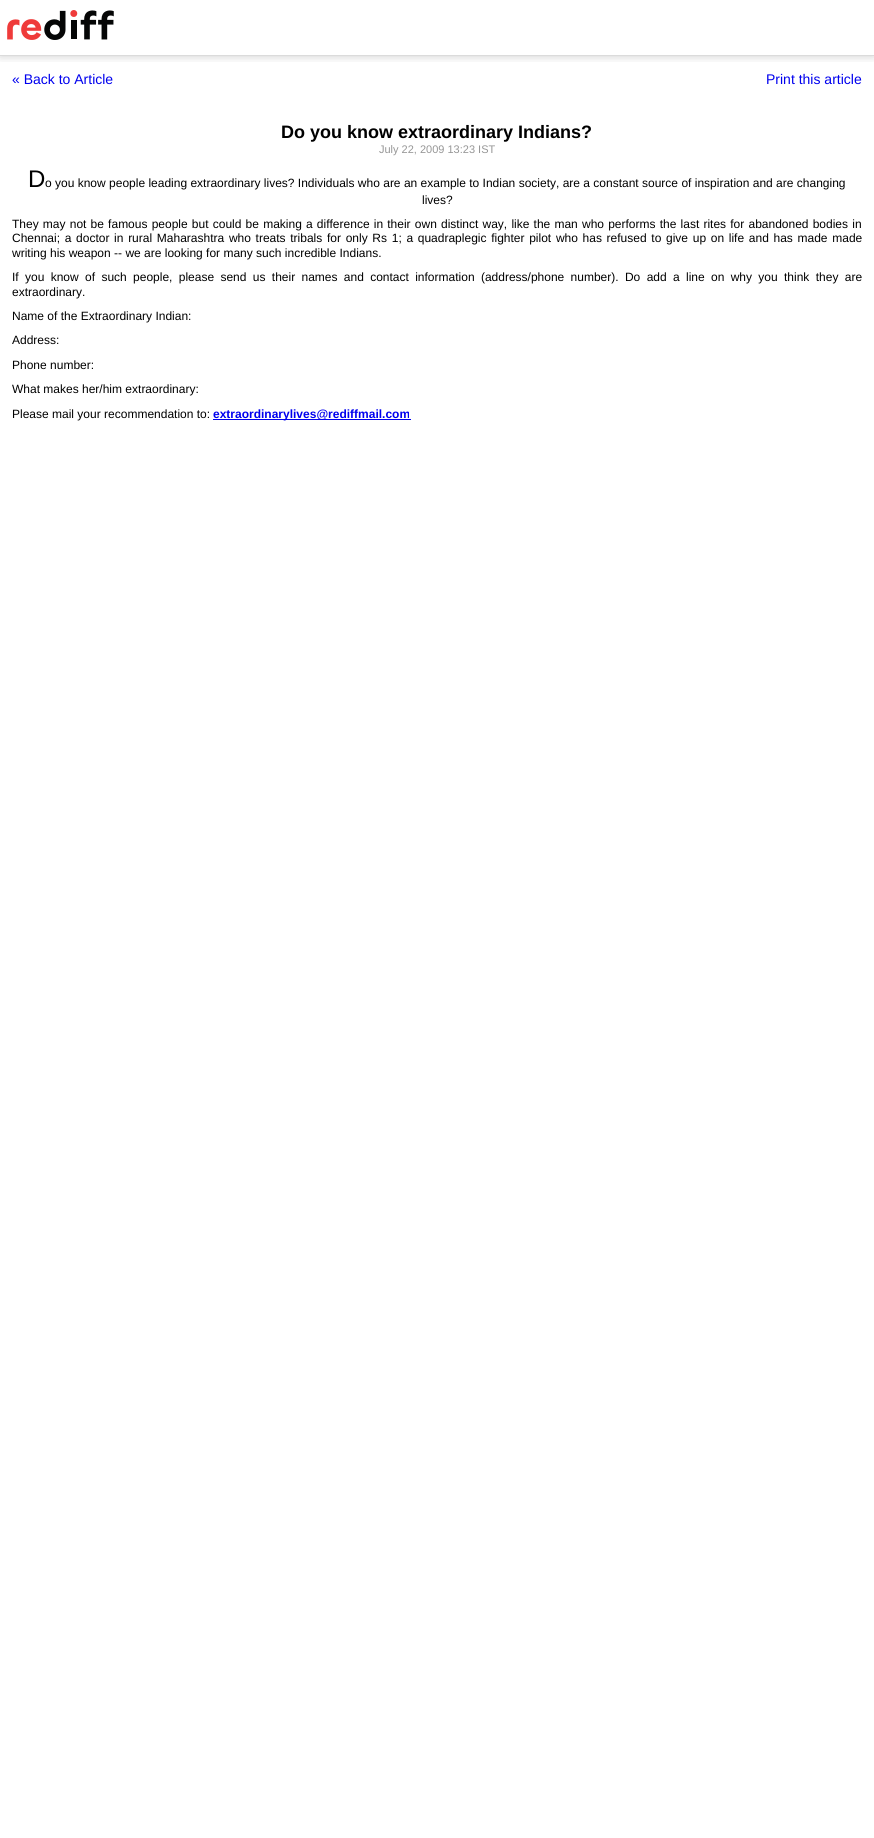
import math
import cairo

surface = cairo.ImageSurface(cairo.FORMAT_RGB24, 874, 1838)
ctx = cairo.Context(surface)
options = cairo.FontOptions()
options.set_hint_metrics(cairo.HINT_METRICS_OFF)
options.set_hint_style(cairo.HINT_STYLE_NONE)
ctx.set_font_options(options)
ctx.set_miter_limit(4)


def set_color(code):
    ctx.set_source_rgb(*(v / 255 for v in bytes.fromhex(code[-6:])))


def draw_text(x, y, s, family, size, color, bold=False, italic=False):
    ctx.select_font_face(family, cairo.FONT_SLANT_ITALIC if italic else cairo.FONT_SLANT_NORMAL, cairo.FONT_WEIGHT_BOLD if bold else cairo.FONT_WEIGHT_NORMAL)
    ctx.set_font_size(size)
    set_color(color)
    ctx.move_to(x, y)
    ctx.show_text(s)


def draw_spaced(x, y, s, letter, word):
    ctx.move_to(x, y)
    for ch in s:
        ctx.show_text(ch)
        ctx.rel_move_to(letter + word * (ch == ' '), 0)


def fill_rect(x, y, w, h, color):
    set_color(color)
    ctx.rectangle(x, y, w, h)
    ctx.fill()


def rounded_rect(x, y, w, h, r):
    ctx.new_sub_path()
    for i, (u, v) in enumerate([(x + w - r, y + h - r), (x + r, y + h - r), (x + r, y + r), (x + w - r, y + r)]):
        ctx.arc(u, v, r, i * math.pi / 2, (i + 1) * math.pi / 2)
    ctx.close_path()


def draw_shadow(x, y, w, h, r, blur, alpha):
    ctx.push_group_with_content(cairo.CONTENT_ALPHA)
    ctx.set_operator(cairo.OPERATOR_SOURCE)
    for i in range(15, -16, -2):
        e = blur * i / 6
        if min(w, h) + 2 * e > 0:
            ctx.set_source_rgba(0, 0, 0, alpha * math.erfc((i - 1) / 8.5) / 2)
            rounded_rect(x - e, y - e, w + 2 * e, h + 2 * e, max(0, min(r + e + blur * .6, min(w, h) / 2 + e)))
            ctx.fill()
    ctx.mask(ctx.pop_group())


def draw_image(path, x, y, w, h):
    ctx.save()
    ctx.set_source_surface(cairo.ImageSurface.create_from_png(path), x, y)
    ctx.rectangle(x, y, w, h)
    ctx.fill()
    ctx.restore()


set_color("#ffffff")
ctx.paint()
ctx.save()
ctx.rectangle(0, 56, 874, 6)
ctx.clip()
set_color("#000000")
draw_shadow(0, 0, 874, 56, 0, 5, 0.2)
ctx.restore()
fill_rect(0, 55, 874, 1, "#dbdbdb")
draw_image("assets/img1.png", 7, 10, 107, 30)
draw_text(12, 84, "« Back to Article", "Liberation Sans", 14, "#0000ee")
draw_text(766, 84, "Print this article", "Liberation Sans", 14, "#0000ee")
draw_text(281, 138, "Do you know extraordinary Indians?", "Liberation Sans", 18, "#000000", bold=True)
draw_text(379, 153, "July 22, 2009 13:23 IST", "Liberation Sans", 11, "#969696")
draw_text(28, 187, "D", "Liberation Sans", 24, "#000000")
draw_text(45, 187, "o you know people leading extraordinary lives? Individuals who are an example to Indian society, are a constant source of inspiration and are changing", "Liberation Sans", 12, "#000000")
draw_text(422, 204, "lives?", "Liberation Sans", 12, "#000000")
draw_spaced(12, 228, "They may not be famous people but could be making a difference in their own distinct way, like the man who performs the last rites for abandoned bodies in", 0, 0.85)
draw_spaced(12, 242, "Chennai; a doctor in rural Maharashtra who treats tribals for only Rs 1; a quadraplegic fighter pilot who has refused to give up on life and has made made", 0, 1.35)
draw_text(12, 257, "writing his weapon -- we are looking for many such incredible Indians.", "Liberation Sans", 12, "#000000")
draw_spaced(12, 281, "If you know of such people, please send us their names and contact information (address/phone number). Do add a line on why you think they are", 0, 3)
draw_text(12, 296, "extraordinary.", "Liberation Sans", 12, "#000000")
draw_text(12, 320, "Name of the Extraordinary Indian:", "Liberation Sans", 12, "#000000")
draw_text(12, 344, "Address:", "Liberation Sans", 12, "#000000")
draw_text(12, 369, "Phone number:", "Liberation Sans", 12, "#000000")
draw_text(12, 393, "What makes her/him extraordinary:", "Liberation Sans", 12, "#000000")
draw_text(12, 418, "Please mail your recommendation to:", "Liberation Sans", 12, "#000000")
fill_rect(213, 419, 198, 1, "#0000ee")
draw_text(213, 418, "extraordinarylives@rediffmail.com", "Liberation Sans", 12, "#0000ee", bold=True)
surface.write_to_png("output.png")
